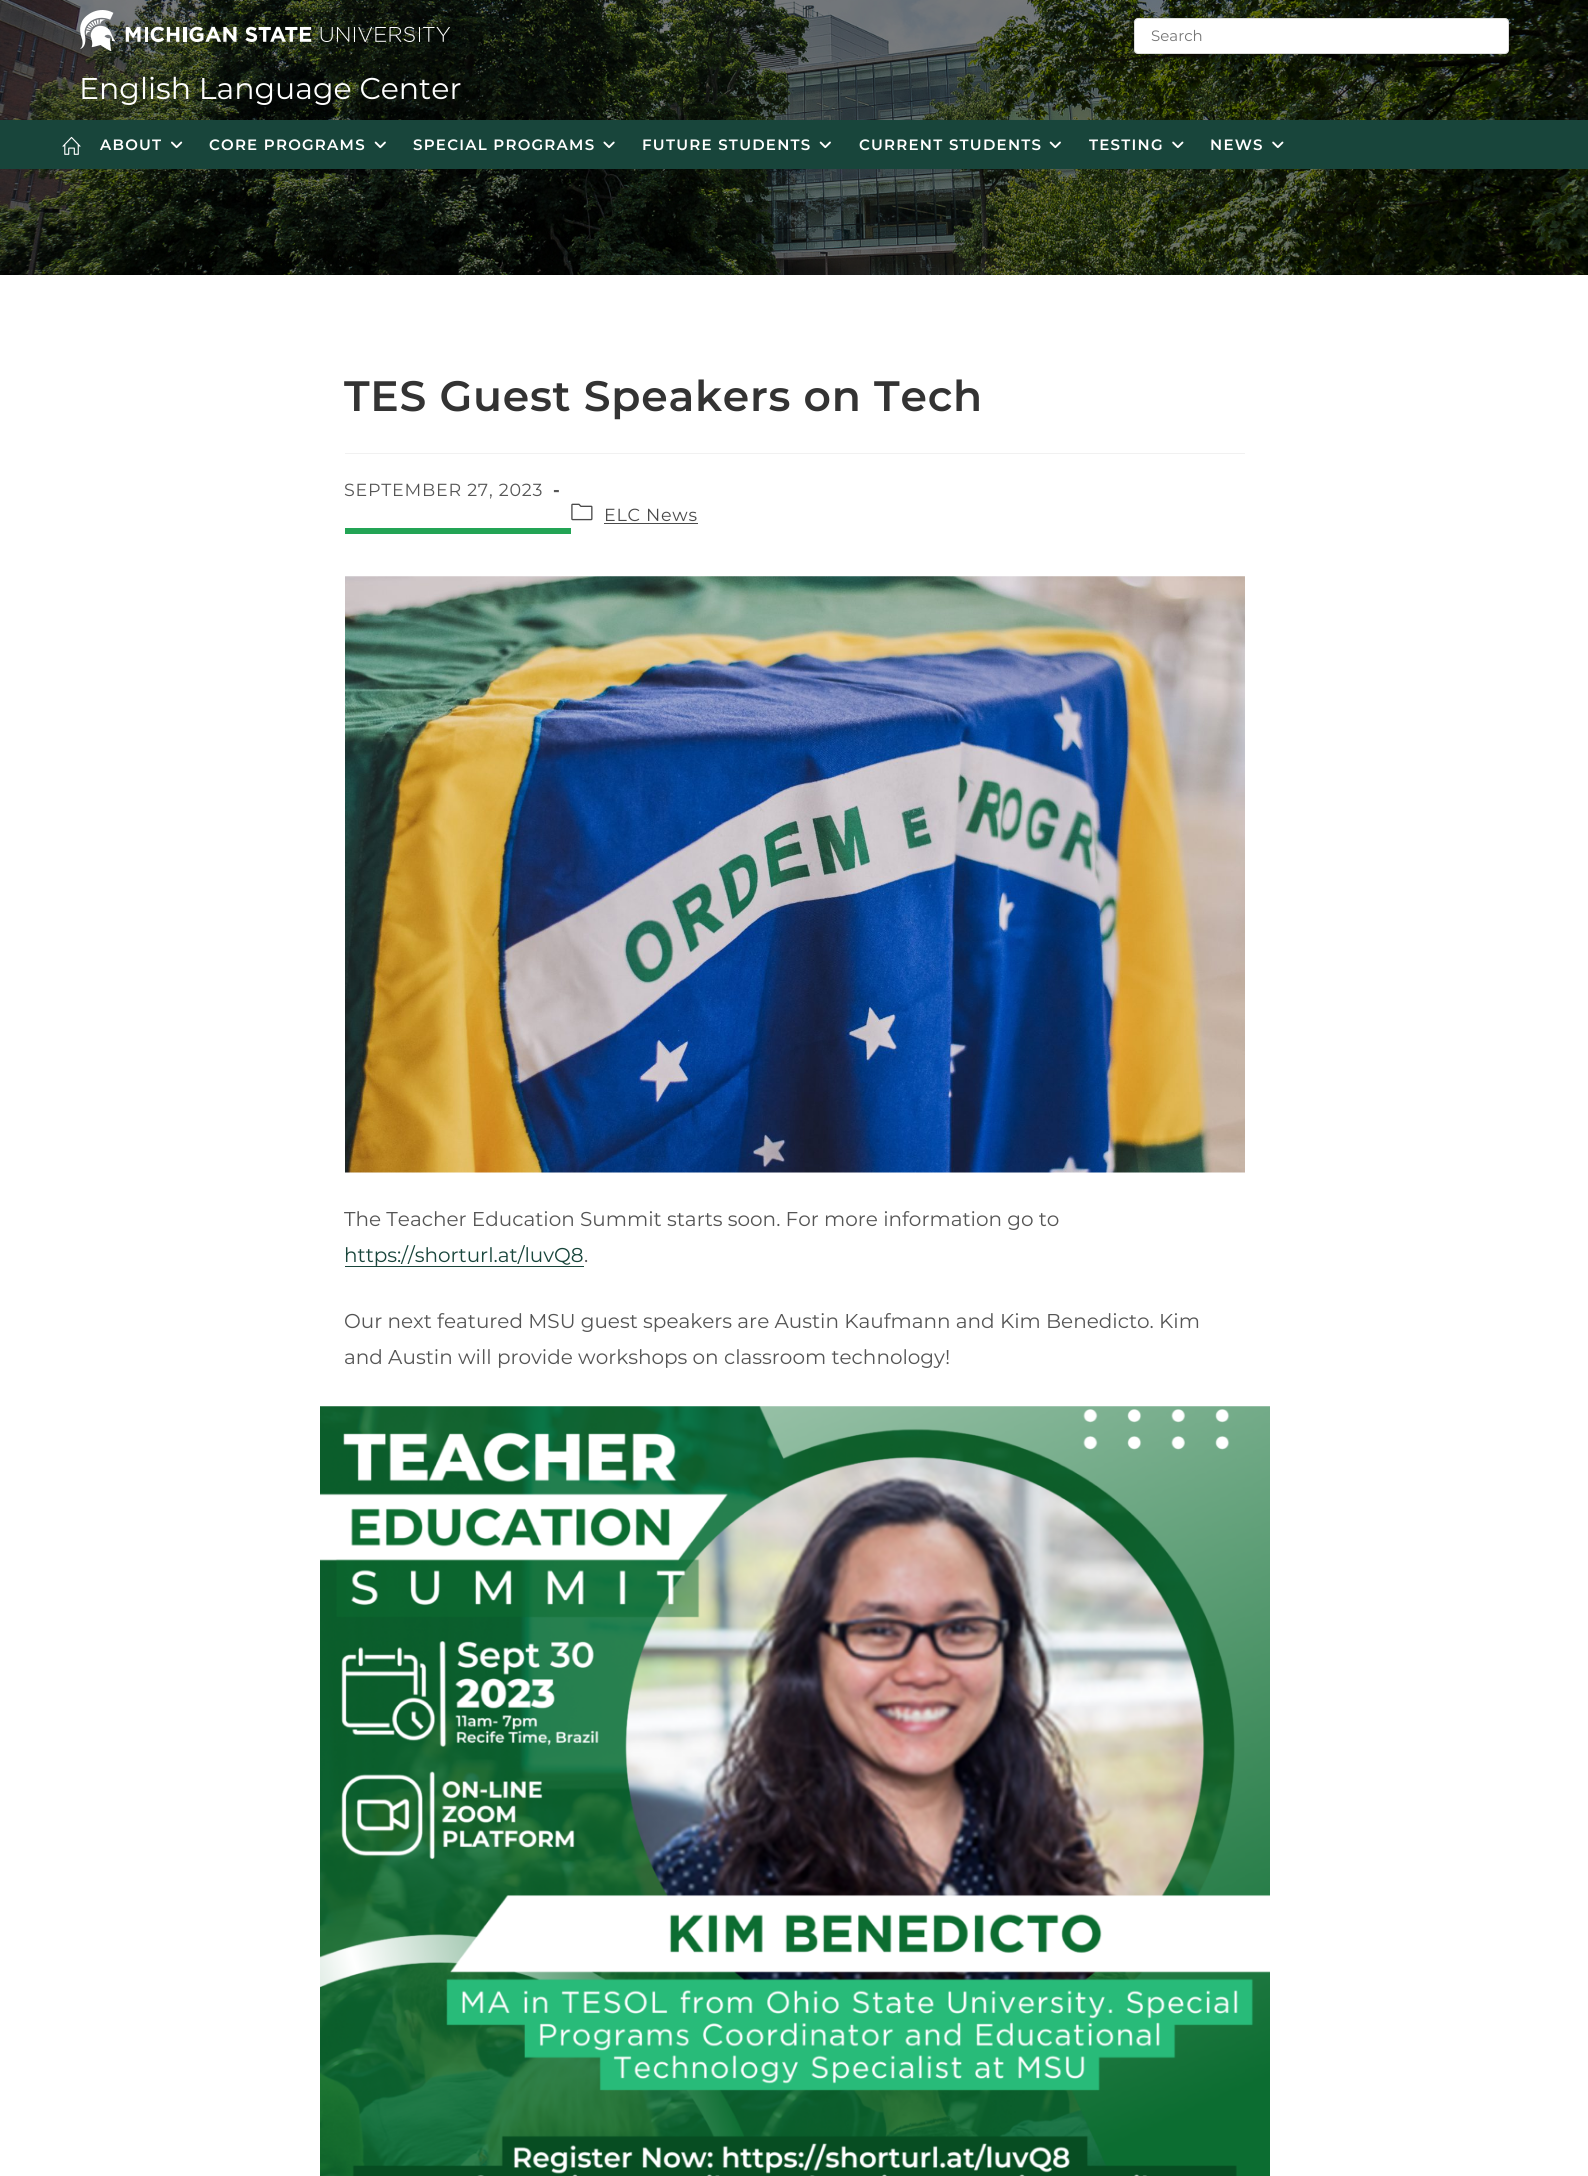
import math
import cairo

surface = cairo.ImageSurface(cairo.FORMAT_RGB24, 1588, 2176)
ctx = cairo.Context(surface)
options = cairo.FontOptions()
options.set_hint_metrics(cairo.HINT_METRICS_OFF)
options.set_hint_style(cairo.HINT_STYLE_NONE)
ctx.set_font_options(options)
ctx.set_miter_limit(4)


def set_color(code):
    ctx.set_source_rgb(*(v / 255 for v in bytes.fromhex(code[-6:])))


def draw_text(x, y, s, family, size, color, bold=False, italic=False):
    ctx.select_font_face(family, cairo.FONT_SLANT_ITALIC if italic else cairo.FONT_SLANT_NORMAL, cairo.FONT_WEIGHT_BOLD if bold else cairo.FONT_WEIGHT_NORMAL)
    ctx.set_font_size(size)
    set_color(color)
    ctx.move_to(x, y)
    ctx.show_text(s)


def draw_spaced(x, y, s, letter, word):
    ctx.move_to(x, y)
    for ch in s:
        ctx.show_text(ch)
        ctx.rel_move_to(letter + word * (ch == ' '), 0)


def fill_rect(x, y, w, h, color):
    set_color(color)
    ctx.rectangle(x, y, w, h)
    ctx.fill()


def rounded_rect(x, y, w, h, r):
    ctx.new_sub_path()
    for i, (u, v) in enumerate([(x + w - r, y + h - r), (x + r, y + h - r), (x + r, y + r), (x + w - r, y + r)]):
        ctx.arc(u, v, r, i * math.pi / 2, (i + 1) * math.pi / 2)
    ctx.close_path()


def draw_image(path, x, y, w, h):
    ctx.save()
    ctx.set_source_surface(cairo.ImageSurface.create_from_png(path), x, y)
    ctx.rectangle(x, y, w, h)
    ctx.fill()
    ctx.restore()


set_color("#ffffff")
ctx.paint()
draw_image("assets/img7.png", 0, 0, 1588, 275)
draw_image("assets/img1.png", 80, 10, 370, 41)
set_color("#ffffff")
rounded_rect(1134.5, 18.5, 374, 35, 3.5)
ctx.fill_preserve()
set_color("#dddddd")
ctx.set_line_width(1)
ctx.stroke()
draw_text(1151, 41, "Search", "Montserrat", 15, "#757575")
draw_text(79, 99, "English Language Center", "Montserrat", 30, "#ffffff")
fill_rect(0, 120, 1588, 49, "#18453b")
draw_image("assets/img2.png", 62, 136, 19, 19)
ctx.select_font_face("Montserrat SemiBold")
ctx.set_font_size(15)
set_color("#ffffff")
draw_spaced(100, 150, "ABOUT", 1.25, 0)
draw_image("assets/img3.png", 171, 141, 12, 8)
draw_spaced(209, 150, "CORE PROGRAMS", 1.25, 0)
draw_image("assets/img4.png", 374, 141, 12, 8)
draw_spaced(413, 150, "SPECIAL PROGRAMS", 1.25, 0)
draw_image("assets/img5.png", 603, 141, 12, 8)
draw_spaced(642, 150, "FUTURE STUDENTS", 1.25, 0)
draw_image("assets/img4.png", 819, 141, 12, 8)
draw_spaced(859, 150, "CURRENT STUDENTS", 1.25, 0)
draw_image("assets/img4.png", 1049, 141, 12, 8)
draw_spaced(1089, 150, "TESTING", 1.25, 0)
draw_image("assets/img6.png", 1172, 141, 12, 8)
draw_spaced(1210, 150, "NEWS", 1.25, 0)
draw_image("assets/img6.png", 1272, 141, 12, 8)
fill_rect(345, 453, 900, 1, "#f1f1f1")
ctx.set_font_size(42.5)
set_color("#333333")
draw_spaced(344, 411, "TES Guest Speakers on Tech", 0.75, 0)
fill_rect(345, 528, 226, 6, "#23a455")
ctx.select_font_face("Montserrat")
ctx.set_font_size(17.5)
set_color("#555555")
draw_spaced(344, 496, "SEPTEMBER 27, 2023", 0.75, 0)
ctx.select_font_face("Montserrat", cairo.FONT_SLANT_NORMAL, cairo.FONT_WEIGHT_BOLD)
draw_spaced(553, 496, "-", 0.75, 0)
draw_image("assets/img8.png", 571, 503, 22, 18)
ctx.select_font_face("Montserrat")
set_color("#4a4a4a")
draw_spaced(604, 521, "ELC News", 0.75, 0)
fill_rect(604, 523, 94, 1, "#4a4a4a")
draw_image("assets/img9.png", 345, 576, 900, 597)
draw_text(344, 1226, "The Teacher Education Summit starts soon. For more information go to", "Montserrat", 20, "#555555")
draw_text(344, 1262, "https://shorturl.at/luvQ8", "Montserrat", 20, "#18453b")
fill_rect(345, 1266, 239, 1, "#18453b")
draw_text(584, 1262, ".", "Montserrat", 20, "#555555")
draw_text(344, 1328, "Our next featured MSU guest speakers are Austin Kaufmann and Kim Benedicto. Kim", "Montserrat", 20, "#555555")
draw_text(344, 1364, "and Austin will provide workshops on classroom technology!", "Montserrat", 20, "#555555")
draw_image("assets/img10.png", 320, 1406, 950, 770)
surface.write_to_png("output.png")
